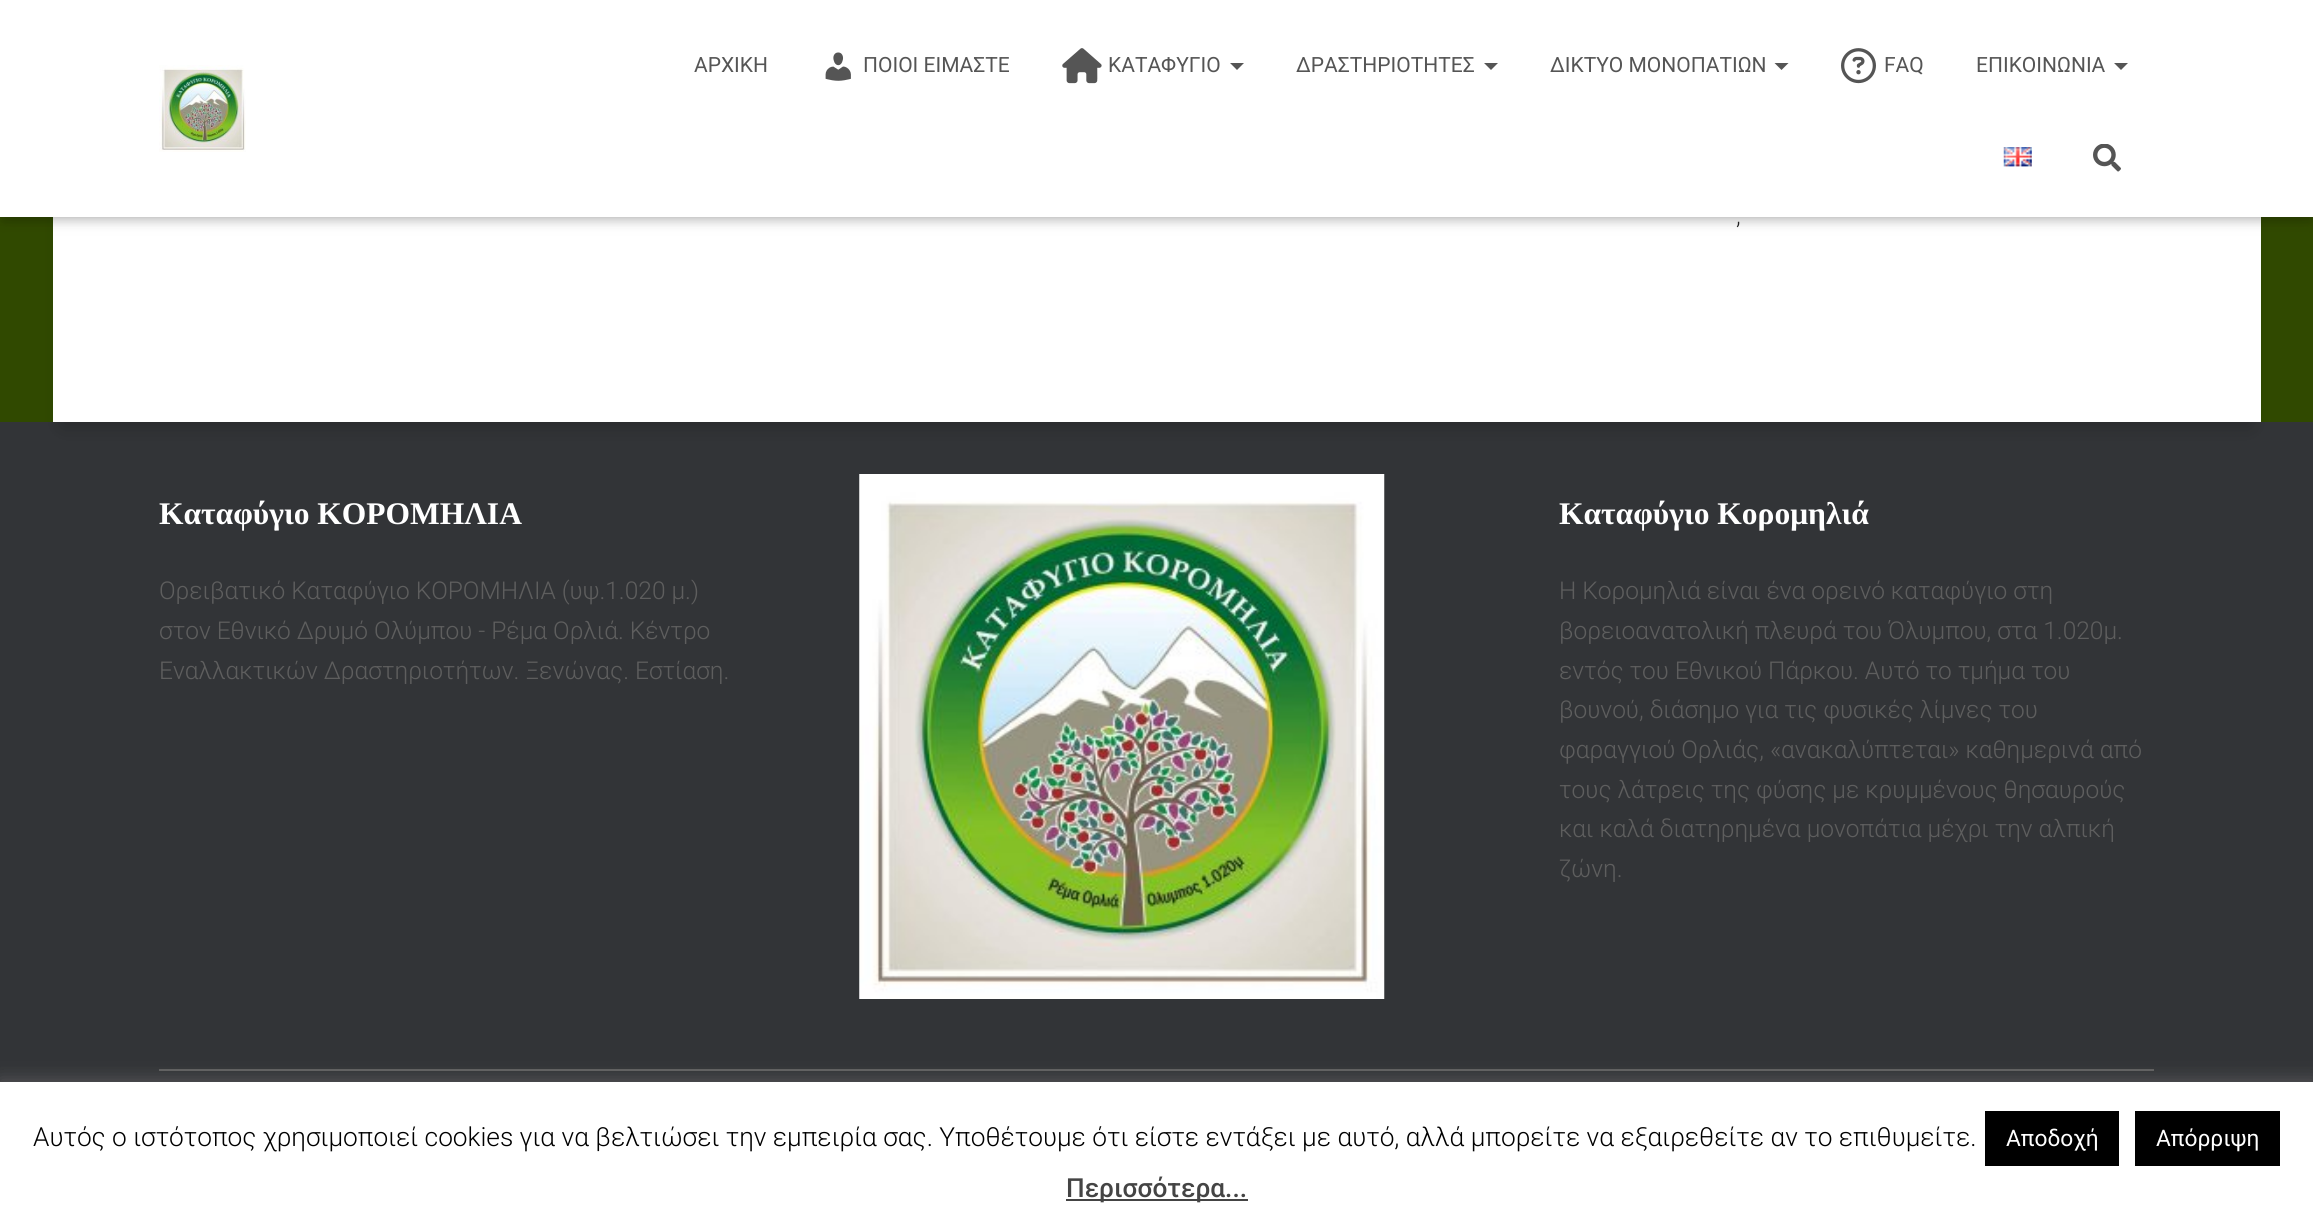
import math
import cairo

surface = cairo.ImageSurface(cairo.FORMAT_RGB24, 2313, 1230)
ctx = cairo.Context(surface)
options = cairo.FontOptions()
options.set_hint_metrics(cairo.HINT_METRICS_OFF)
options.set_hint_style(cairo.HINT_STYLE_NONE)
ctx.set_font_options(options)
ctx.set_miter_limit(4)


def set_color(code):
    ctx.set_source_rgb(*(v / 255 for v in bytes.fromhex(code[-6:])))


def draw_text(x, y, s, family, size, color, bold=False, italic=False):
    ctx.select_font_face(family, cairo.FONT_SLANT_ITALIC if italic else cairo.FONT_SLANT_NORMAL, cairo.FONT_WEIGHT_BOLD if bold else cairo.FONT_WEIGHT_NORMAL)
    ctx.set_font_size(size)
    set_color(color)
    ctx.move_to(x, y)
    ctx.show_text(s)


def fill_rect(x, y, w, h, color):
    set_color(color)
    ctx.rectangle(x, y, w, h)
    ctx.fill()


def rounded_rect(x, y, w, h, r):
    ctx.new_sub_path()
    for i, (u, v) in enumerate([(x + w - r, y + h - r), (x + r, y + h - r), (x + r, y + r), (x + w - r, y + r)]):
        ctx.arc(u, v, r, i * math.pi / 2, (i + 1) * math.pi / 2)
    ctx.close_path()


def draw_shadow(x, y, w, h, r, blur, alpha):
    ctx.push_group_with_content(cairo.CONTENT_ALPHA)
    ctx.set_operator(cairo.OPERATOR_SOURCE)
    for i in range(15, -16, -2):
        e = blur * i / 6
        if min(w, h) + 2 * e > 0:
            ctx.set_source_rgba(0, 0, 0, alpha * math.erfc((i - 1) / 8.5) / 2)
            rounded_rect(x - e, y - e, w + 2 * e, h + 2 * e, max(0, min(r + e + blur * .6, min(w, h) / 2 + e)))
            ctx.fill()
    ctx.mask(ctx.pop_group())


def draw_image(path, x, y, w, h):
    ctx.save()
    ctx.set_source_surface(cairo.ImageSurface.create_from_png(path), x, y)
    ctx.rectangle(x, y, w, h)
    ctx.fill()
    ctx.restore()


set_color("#304900")
ctx.paint()
fill_rect(0, 422, 2313, 660, "#323437")
set_color("#000000")
draw_shadow(61, -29, 2191, 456, 2, 9, 0.2)
fill_rect(53, 217, 2208, 205, "#ffffff")
set_color("#000000")
draw_shadow(4, 11, 2306, 210, 0, 4.5, 0.1)
draw_shadow(0, 2, 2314, 217, 0, 9, 0.12)
draw_shadow(11, 12, 2292, 196, 0, 9, 0.42)
fill_rect(0, 0, 2313, 217, "#ffffff")
draw_image("assets/img1.png", 159, 65, 87, 87)
draw_text(694, 72, "ΑΡΧΙΚΗ", "Roboto", 21, "#555555")
draw_image("assets/img2.png", 825, 52, 26, 29)
draw_text(863, 72, "ΠΟΙΟΙ ΕΙΜΑΣΤΕ", "Roboto", 21, "#555555")
draw_image("assets/img3.png", 1062, 48, 40, 36)
draw_text(1108, 72, "ΚΑΤΑΦΥΓΙΟ", "Roboto", 21, "#555555")
ctx.new_path()
ctx.move_to(1230, 63)
ctx.line_to(1244, 63)
ctx.line_to(1237, 70)
ctx.close_path()
ctx.fill()
draw_text(1296, 72, "ΔΡΑΣΤΗΡΙΟΤΗΤΕΣ", "Roboto", 21, "#555555")
ctx.new_path()
ctx.move_to(1484, 63)
ctx.line_to(1498, 63)
ctx.line_to(1491, 70)
ctx.close_path()
ctx.fill()
draw_text(1550, 72, "ΔΙΚΤΥΟ ΜΟΝΟΠΑΤΙΩΝ", "Roboto", 21, "#555555")
ctx.new_path()
ctx.move_to(1774.5, 63)
ctx.line_to(1788.5, 63)
ctx.line_to(1781.5, 70)
ctx.close_path()
ctx.fill()
draw_image("assets/img4.png", 1841, 48, 35, 36)
draw_text(1884, 72, "FAQ", "Roboto", 21, "#555555")
draw_text(1976, 72, "ΕΠΙΚΟΙΝΩΝΙΑ", "Roboto", 21, "#555555")
ctx.new_path()
ctx.move_to(2114, 63)
ctx.line_to(2128, 63)
ctx.line_to(2121, 70)
ctx.close_path()
ctx.fill()
draw_image("assets/img5.png", 2003, 147, 29, 20)
draw_image("assets/img6.png", 2093, 144, 28, 28)
draw_text(1736, 224, ",", "Roboto Light", 24.5, "#212121")
draw_text(159, 524, "Καταφύγιο ΚΟΡΟΜΗΛΙΑ", "Liberation Serif", 31.5, "#ffffff", bold=True)
draw_text(159, 599, "Ορειβατικό Καταφύγιο ΚΟΡΟΜΗΛΙΑ (υψ.1.020 μ.)", "Roboto Light", 24.5, "#5e5e5e")
draw_text(159, 639, "στον Εθνικό Δρυμό Ολύμπου - Ρέμα Ορλιά. Κέντρο", "Roboto Light", 24.5, "#5e5e5e")
draw_text(159, 679, "Εναλλακτικών Δραστηριοτήτων. Ξενώνας. Εστίαση.", "Roboto Light", 24.5, "#5e5e5e")
draw_image("assets/img7.png", 859, 474, 526, 525)
draw_text(1559, 524, "Καταφύγιο Κορομηλιά", "Liberation Serif", 31.5, "#ffffff", bold=True)
draw_text(1559, 599, "Η Κορομηλιά είναι ένα ορεινό καταφύγιο στη", "Roboto Light", 24.5, "#5e5e5e")
draw_text(1559, 639, "βορειοανατολική πλευρά του Όλυμπου, στα 1.020μ.", "Roboto Light", 24.5, "#5e5e5e")
draw_text(1559, 679, "εντός του Εθνικού Πάρκου. Αυτό το τμήμα του", "Roboto Light", 24.5, "#5e5e5e")
draw_text(1559, 718, "βουνού, διάσημο για τις φυσικές λίμνες του", "Roboto Light", 24.5, "#5e5e5e")
draw_text(1559, 758, "φαραγγιού Ορλιάς, «ανακαλύπτεται» καθημερινά από", "Roboto Light", 24.5, "#5e5e5e")
draw_text(1559, 798, "τους λάτρεις της φύσης με κρυμμένους θησαυρούς", "Roboto Light", 24.5, "#5e5e5e")
draw_text(1559, 837, "και καλά διατηρημένα μονοπάτια μέχρι την αλπική", "Roboto Light", 24.5, "#5e5e5e")
draw_text(1559, 877, "ζώνη.", "Roboto Light", 24.5, "#5e5e5e")
fill_rect(159, 1069, 1995, 2, "#5e5e5e")
set_color("#acabab")
draw_shadow(0, 1080, 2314, 149, 0, 9, 0.3)
fill_rect(0, 1082, 2313, 148, "#ffffff")
draw_text(33, 1146, "Αυτός ο ιστότοπος χρησιμοποιεί cookies για να βελτιώσει την εμπειρία σας. Υποθέτουμε ότι είστε εντάξει με αυτό, αλλά μπορείτε να εξαιρεθείτε αν το επιθυμείτε.", "Roboto Light", 26.25, "#000000")
fill_rect(1985, 1111, 134, 55, "#000000")
draw_text(2006, 1146, "Αποδοχή", "Roboto", 22.75, "#ffffff")
fill_rect(2135, 1111, 145, 55, "#000000")
draw_text(2156, 1146, "Απόρριψη", "Roboto", 22.75, "#ffffff")
fill_rect(1066, 1199, 182, 2, "#444444")
draw_text(1066, 1197, "Περισσότερα...", "Roboto Medium", 26.25, "#444444")
surface.write_to_png("output.png")
